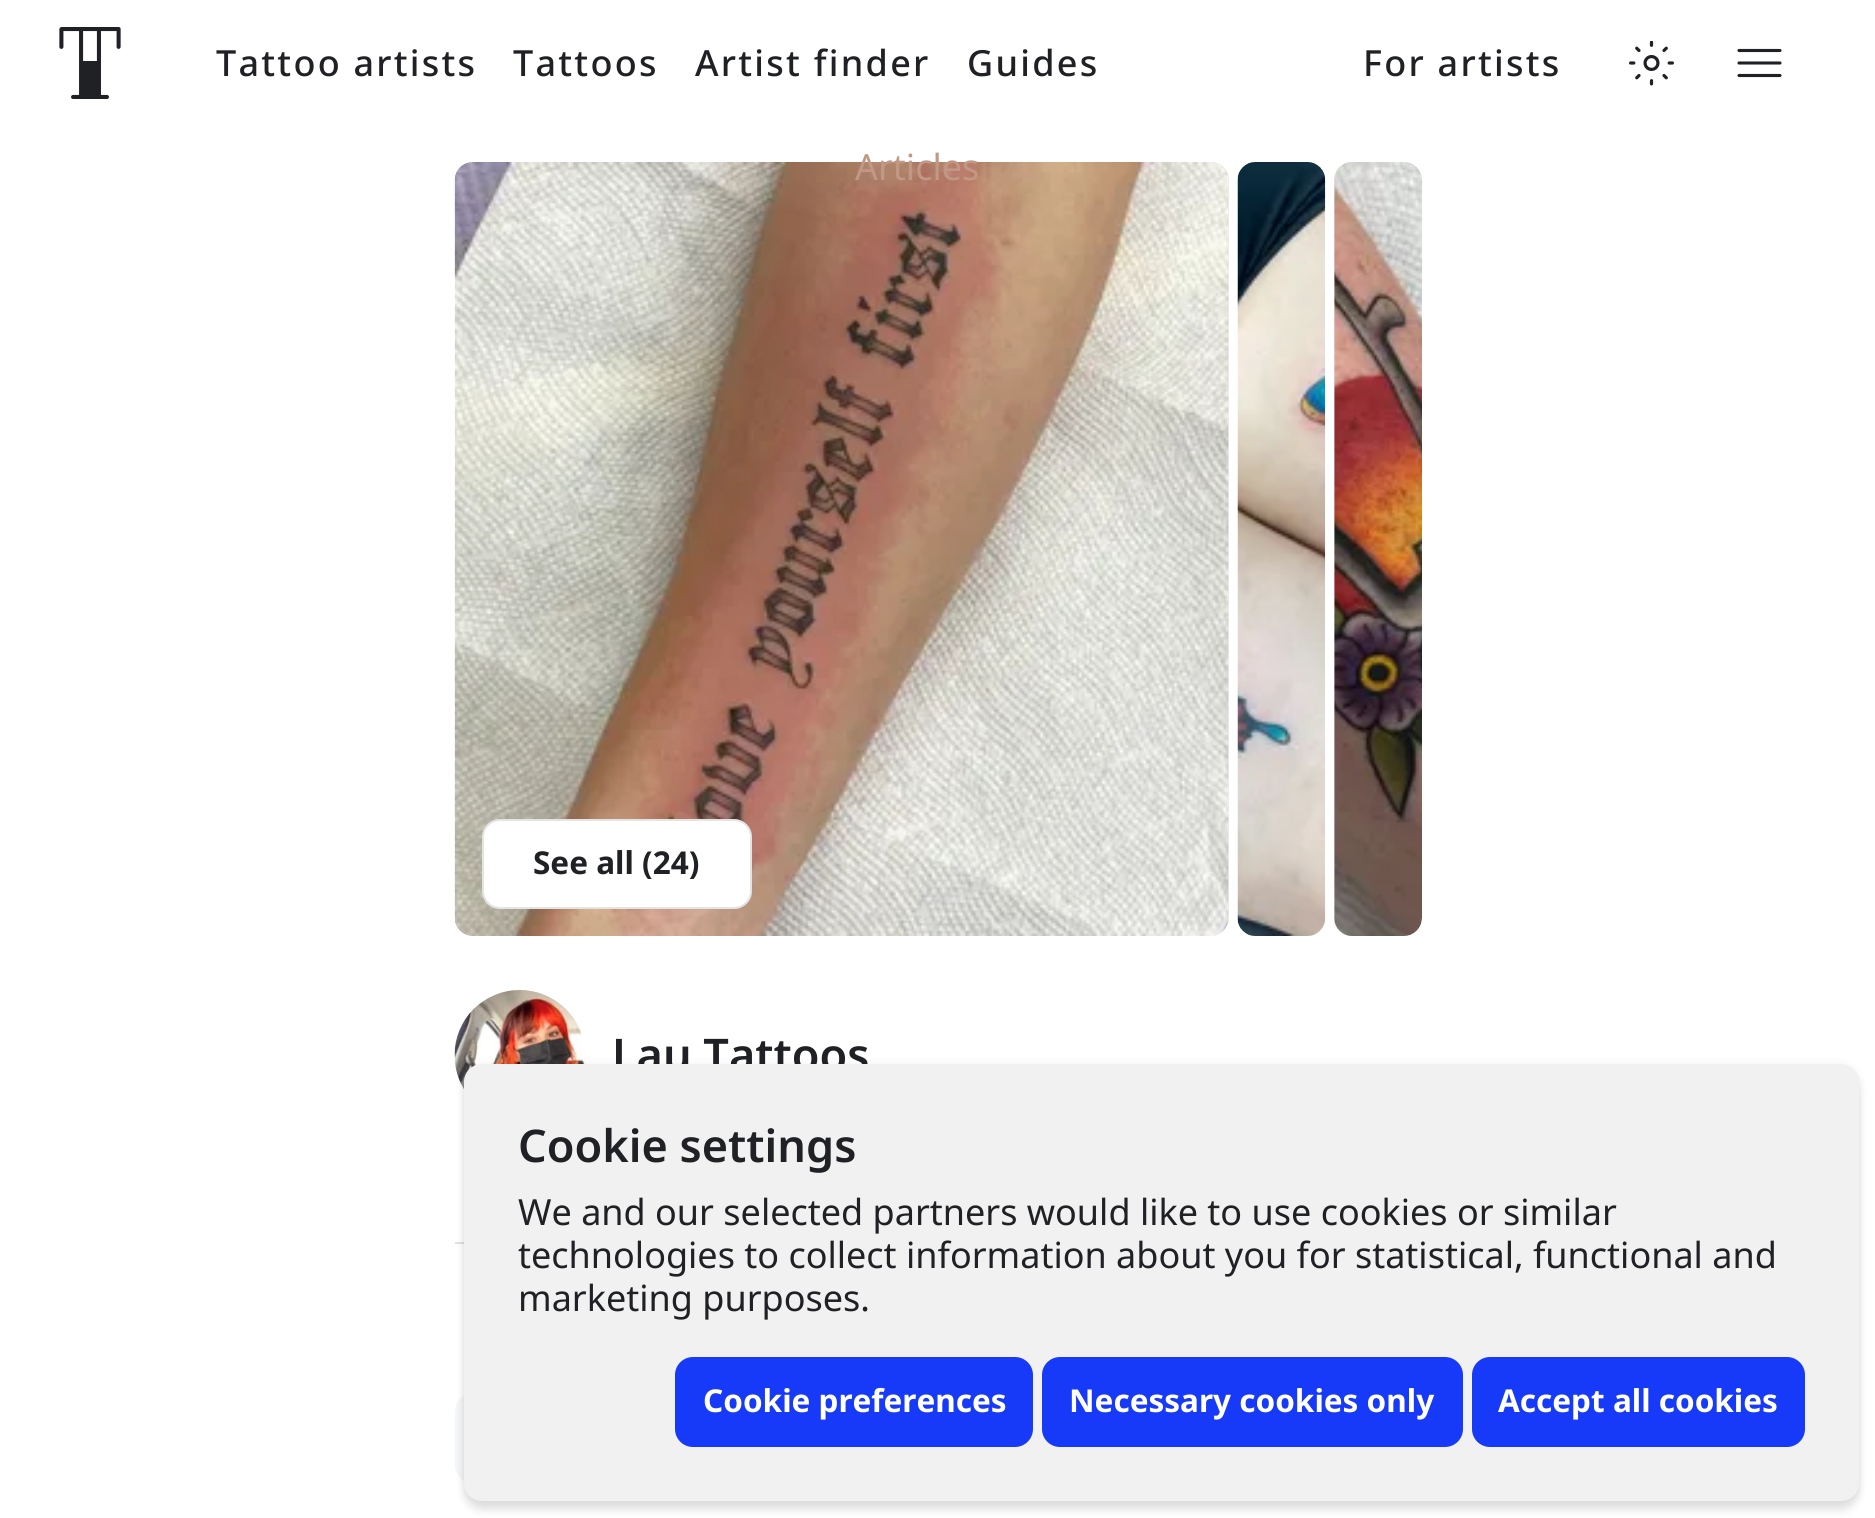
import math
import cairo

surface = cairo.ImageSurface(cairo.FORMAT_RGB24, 1875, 1518)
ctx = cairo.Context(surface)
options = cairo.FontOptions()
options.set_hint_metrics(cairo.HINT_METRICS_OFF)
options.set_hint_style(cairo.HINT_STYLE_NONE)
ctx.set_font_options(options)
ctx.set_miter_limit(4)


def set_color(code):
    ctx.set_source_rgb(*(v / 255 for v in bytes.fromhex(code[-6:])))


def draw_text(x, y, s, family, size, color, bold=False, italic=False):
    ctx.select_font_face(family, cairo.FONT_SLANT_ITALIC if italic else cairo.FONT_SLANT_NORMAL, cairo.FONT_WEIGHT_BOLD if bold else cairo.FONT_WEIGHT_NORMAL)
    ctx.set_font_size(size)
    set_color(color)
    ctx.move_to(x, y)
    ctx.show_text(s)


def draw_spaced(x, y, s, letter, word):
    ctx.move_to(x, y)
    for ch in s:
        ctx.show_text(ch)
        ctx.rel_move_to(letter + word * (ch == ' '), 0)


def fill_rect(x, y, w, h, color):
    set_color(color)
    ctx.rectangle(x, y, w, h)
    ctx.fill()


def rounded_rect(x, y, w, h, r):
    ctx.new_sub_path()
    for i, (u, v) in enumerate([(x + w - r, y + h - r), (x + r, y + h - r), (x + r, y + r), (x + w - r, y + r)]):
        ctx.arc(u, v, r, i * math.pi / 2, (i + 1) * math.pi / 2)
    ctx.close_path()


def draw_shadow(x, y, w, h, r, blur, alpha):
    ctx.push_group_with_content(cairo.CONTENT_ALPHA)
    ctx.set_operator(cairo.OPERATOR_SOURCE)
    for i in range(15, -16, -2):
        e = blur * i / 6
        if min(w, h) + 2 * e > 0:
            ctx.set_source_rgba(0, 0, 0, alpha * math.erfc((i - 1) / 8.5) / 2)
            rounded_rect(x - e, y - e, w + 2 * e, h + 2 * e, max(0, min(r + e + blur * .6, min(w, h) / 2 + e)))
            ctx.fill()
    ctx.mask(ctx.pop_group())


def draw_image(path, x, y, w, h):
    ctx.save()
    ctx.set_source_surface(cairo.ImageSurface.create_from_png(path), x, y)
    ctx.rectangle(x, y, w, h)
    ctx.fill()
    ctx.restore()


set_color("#ffffff")
ctx.paint()
draw_image("assets/img1.png", 59, 27, 62, 72)
ctx.select_font_face("Noto Sans Medium")
ctx.set_font_size(36)
set_color("#202125")
draw_spaced(216, 76, "Tattoo artists", 2.25, 0)
draw_spaced(513, 76, "Tattoos", 2.25, 0)
draw_spaced(695, 76, "Artist finder", 2.25, 0)
draw_spaced(967, 76, "Guides", 2.25, 0)
set_color("#ebebeb")
rounded_rect(455, 162, 774, 774, 18)
ctx.fill()
draw_image("assets/img3.png", 454, 162, 775, 774)
draw_text(855, 180, "Articles", "Noto Sans", 36, "#c19885")
ctx.select_font_face("Noto Sans Medium")
set_color("#202125")
draw_spaced(1363, 76, "For artists", 2.25, 0)
draw_image("assets/img2.png", 1629, 41, 45, 45)
ctx.new_path()
ctx.move_to(1739, 75.5)
ctx.line_to(1780, 75.5)
ctx.move_to(1739, 63)
ctx.line_to(1780, 63)
ctx.move_to(1739, 50.5)
ctx.line_to(1780, 50.5)
ctx.set_line_width(3.1)
ctx.set_line_cap(cairo.LINE_CAP_ROUND)
ctx.set_line_join(cairo.LINE_JOIN_ROUND)
ctx.stroke()
draw_image("assets/img4.png", 1237, 162, 89, 774)
set_color("#ebebeb")
rounded_rect(1334, 162, 88, 774, 18)
ctx.fill()
draw_image("assets/img5.png", 1334, 162, 88, 774)
set_color("#ffffff")
rounded_rect(482, 819, 270, 90, 18)
ctx.fill()
rounded_rect(483, 820, 268, 88, 17)
ctx.set_source_rgba(0.125, 0.129, 0.145, 0.12)
ctx.set_line_width(2)
ctx.set_line_cap(cairo.LINE_CAP_BUTT)
ctx.set_line_join(cairo.LINE_JOIN_MITER)
ctx.stroke()
draw_text(533, 874, "See all (24)", "Noto Sans", 31.5, "#202125", bold=True)
set_color("#f5f6f7")
rounded_rect(455, 990, 130, 131, 65)
ctx.fill()
draw_image("assets/img6.png", 454, 990, 131, 99)
draw_text(612, 1071, "Lau Tattoos", "Noto Sans SemiBold", 45, "#202125")
fill_rect(455, 1242, 9, 2, "#e1e1e1")
set_color("#f5f6f7")
rounded_rect(455, 1393, 967, 90, 18)
ctx.fill()
set_color("#000000")
draw_shadow(464, 1064, 1395, 437, 18, 4.5, 0.06)
draw_shadow(464, 1073, 1395, 437, 18, 4.5, 0.12)
set_color("#f1f1f1")
rounded_rect(464, 1064, 1395, 437, 18)
ctx.fill()
draw_text(518, 1162, "Cookie settings", "Noto Sans SemiBold", 45, "#202125")
draw_text(518, 1225, "We and our selected partners would like to use cookies or similar", "Noto Sans", 36, "#202125")
draw_text(518, 1268, "technologies to collect information about you for statistical, functional and", "Noto Sans", 36, "#202125")
draw_text(518, 1311, "marketing purposes.", "Noto Sans", 36, "#202125")
set_color("#173af8")
rounded_rect(675, 1357, 358, 90, 18)
ctx.fill()
draw_text(703, 1412, "Cookie preferences", "Noto Sans", 31.5, "#ffffff", bold=True)
set_color("#173af8")
rounded_rect(1042, 1357, 421, 90, 18)
ctx.fill()
draw_text(1069, 1412, "Necessary cookies only", "Noto Sans", 31.5, "#ffffff", bold=True)
set_color("#173af8")
rounded_rect(1472, 1357, 333, 90, 18)
ctx.fill()
draw_text(1498, 1412, "Accept all cookies", "Noto Sans", 31.5, "#ffffff", bold=True)
surface.write_to_png("output.png")
